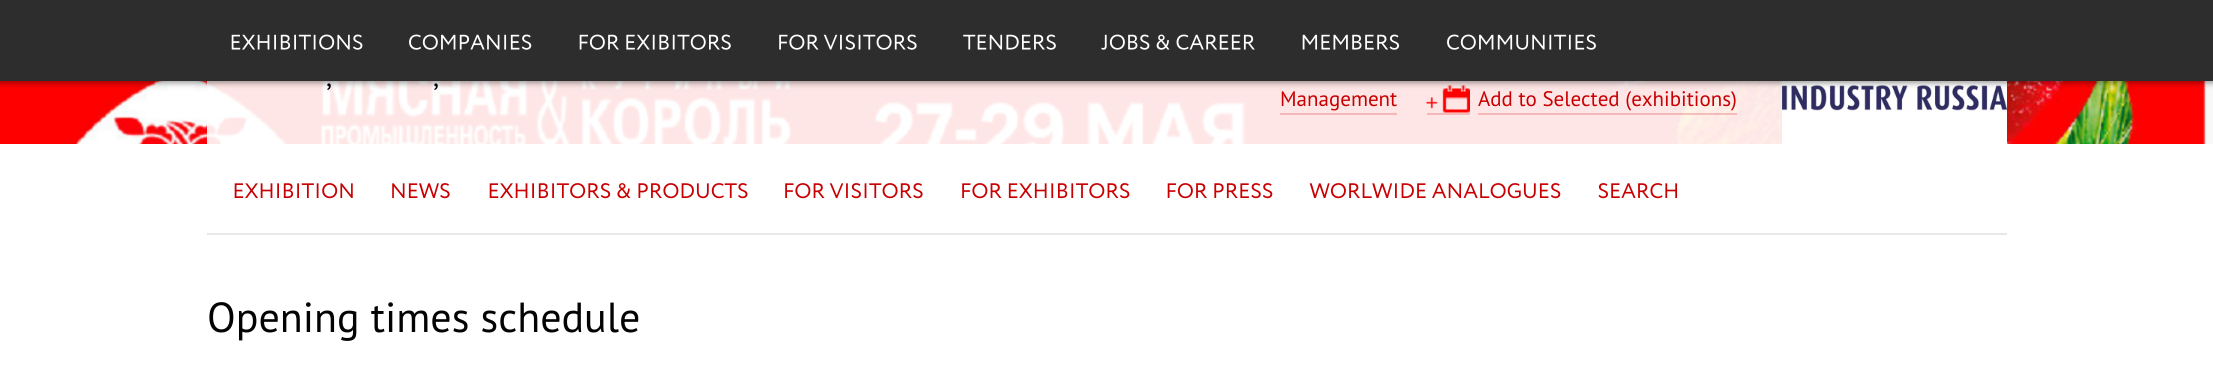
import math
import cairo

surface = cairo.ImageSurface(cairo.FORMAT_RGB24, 2213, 373)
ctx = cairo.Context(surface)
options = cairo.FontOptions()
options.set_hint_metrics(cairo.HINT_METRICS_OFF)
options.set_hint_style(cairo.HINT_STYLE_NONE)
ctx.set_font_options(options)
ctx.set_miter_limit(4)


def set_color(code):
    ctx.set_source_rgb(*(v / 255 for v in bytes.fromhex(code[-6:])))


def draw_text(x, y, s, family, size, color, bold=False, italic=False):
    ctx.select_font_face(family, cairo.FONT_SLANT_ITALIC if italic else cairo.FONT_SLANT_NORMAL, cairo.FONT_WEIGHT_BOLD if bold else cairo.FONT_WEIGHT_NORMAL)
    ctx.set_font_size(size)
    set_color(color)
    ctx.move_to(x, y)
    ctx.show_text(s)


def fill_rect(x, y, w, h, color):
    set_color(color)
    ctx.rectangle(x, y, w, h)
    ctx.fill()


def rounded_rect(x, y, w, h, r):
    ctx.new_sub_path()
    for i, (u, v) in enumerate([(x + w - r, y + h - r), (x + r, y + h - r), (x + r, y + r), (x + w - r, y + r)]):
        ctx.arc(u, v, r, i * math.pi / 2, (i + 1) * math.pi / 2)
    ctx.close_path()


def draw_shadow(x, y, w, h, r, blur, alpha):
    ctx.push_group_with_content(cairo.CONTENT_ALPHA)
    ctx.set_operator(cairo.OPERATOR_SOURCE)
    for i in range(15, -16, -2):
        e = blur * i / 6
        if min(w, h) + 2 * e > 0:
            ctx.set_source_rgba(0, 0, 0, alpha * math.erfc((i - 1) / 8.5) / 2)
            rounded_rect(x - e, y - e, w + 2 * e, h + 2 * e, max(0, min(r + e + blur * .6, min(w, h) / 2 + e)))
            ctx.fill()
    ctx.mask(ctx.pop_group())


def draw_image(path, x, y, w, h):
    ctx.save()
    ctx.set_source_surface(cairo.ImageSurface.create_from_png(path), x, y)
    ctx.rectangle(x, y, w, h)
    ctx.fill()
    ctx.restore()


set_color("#ffffff")
ctx.paint()
draw_image("assets/img9.png", 0, 81, 2213, 63)
ctx.set_source_rgba(1, 1, 1, 0.9)
ctx.rectangle(207, 81, 1575, 63)
ctx.fill()
draw_image("assets/img10.png", 1426, 85, 44, 28)
draw_image("assets/img11.png", 1782, 81, 225, 30)
set_color("#000000")
draw_shadow(0, 2, 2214, 81, 0, 3, 0.4)
fill_rect(0, 0, 2213, 81, "#2d2d2d")
draw_image("assets/img1.png", 231, 34, 132, 16)
draw_image("assets/img2.png", 409, 34, 123, 16)
draw_image("assets/img3.png", 579, 34, 152, 16)
draw_image("assets/img4.png", 779, 34, 138, 16)
draw_image("assets/img5.png", 963, 34, 93, 16)
draw_image("assets/img6.png", 1101, 34, 154, 16)
draw_image("assets/img7.png", 1302, 34, 98, 16)
draw_image("assets/img8.png", 1447, 34, 149, 16)
draw_text(326, 86, ",", "PT Sans", 27, "#030303")
draw_text(433, 86, ",", "PT Sans", 27, "#030303")
draw_text(1280, 106, "Management", "PT Sans", 21, "#c80002")
fill_rect(1280, 113, 117, 2, "#f4b8b8")
fill_rect(1427, 113, 43, 2, "#f4b8b8")
ctx.set_source_rgba(0.784, 0, 0.008, 0.2)
ctx.rectangle(1478, 113, 259, 2)
ctx.fill()
draw_text(1478, 106, "Add to Selected (exhibitions)", "PT Sans", 21, "#c80002")
fill_rect(1782, 111, 225, 33, "#ffffff")
fill_rect(207, 233, 1800, 2, "#e8e8e8")
draw_image("assets/img12.png", 234, 183, 119, 16)
draw_image("assets/img13.png", 392, 183, 58, 16)
draw_image("assets/img14.png", 489, 183, 259, 16)
draw_image("assets/img15.png", 785, 183, 138, 16)
draw_image("assets/img16.png", 962, 183, 168, 16)
draw_image("assets/img17.png", 1167, 183, 106, 16)
draw_image("assets/img18.png", 1309, 183, 252, 16)
draw_image("assets/img19.png", 1598, 183, 80, 16)
draw_text(207, 332, "Opening times schedule", "PT Sans", 42, "#030303")
surface.write_to_png("output.png")
